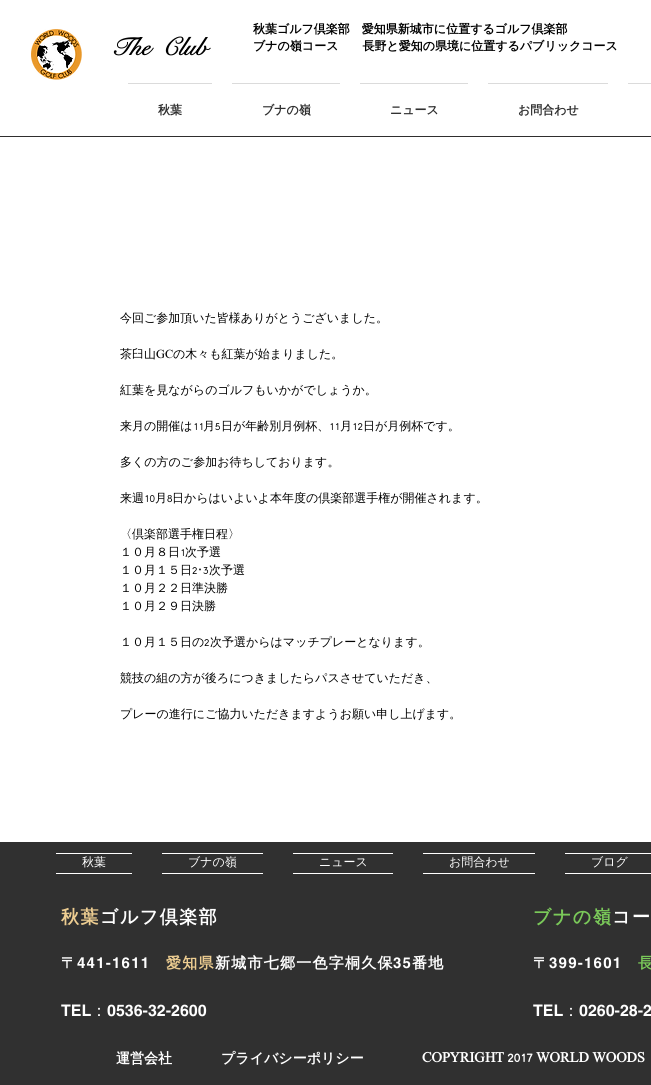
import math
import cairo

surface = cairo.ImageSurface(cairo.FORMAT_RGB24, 651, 1085)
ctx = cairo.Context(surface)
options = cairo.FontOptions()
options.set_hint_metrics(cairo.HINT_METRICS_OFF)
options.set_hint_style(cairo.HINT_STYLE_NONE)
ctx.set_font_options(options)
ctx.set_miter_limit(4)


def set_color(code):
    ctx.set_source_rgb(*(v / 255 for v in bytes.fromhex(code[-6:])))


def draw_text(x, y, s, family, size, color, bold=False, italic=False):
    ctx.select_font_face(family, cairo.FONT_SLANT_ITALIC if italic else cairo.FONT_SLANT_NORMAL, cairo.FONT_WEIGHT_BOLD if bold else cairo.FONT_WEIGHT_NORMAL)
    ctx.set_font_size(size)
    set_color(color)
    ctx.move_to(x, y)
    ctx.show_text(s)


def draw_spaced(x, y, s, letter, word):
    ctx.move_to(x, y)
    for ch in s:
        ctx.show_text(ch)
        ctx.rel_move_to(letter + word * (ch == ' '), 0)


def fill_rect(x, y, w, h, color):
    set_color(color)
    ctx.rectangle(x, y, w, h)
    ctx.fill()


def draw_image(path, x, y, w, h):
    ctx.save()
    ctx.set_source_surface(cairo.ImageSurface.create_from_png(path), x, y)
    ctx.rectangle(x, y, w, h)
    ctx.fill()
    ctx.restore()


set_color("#ffffff")
ctx.paint()
draw_image("assets/img1.png", 31, 29, 51, 51)
draw_text(111, 55, "The  Club", "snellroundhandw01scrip", 25, "#000000", bold=True)
draw_text(253, 33, "秋葉ゴルフ倶楽部　愛知県新城市に位置するゴルフ倶楽部", "WenQuanYi Zen Hei", 12, "#000000", bold=True)
draw_text(253, 50, "ブナの嶺コース　　長野と愛知の県境に位置するパブリックコース", "WenQuanYi Zen Hei", 12, "#000000", bold=True)
fill_rect(628, 83, 23, 1, "#dbdbdb")
fill_rect(128, 83, 84, 1, "#dbdbdb")
draw_text(158, 114, "秋葉", "WenQuanYi Zen Hei", 12, "#303030", bold=True)
fill_rect(232, 83, 108, 1, "#dbdbdb")
draw_text(262, 114, "ブナの嶺", "WenQuanYi Zen Hei", 12, "#303030", bold=True)
fill_rect(360, 83, 108, 1, "#dbdbdb")
draw_text(390, 114, "ニュース", "WenQuanYi Zen Hei", 12, "#303030", bold=True)
fill_rect(488, 83, 120, 1, "#dbdbdb")
draw_text(518, 114, "お問合わせ", "WenQuanYi Zen Hei", 12, "#303030", bold=True)
fill_rect(0, 136, 651, 1, "#2f2e2e")
draw_text(120, 322, "今回ご参加頂いた皆様ありがとうございました。", "WenQuanYi Zen Hei Medium", 12, "#000000")
draw_text(120, 358, "茶臼山", "WenQuanYi Zen Hei Medium", 12, "#000000")
draw_text(156, 358, "GC", "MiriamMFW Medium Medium", 12, "#000000")
draw_text(173, 358, "の木々も紅葉が始まりました。", "WenQuanYi Zen Hei Medium", 12, "#000000")
draw_text(120, 394, "紅葉を見ながらのゴルフもいかがでしょうか。", "WenQuanYi Zen Hei Medium", 12, "#000000")
draw_text(120, 430, "来月の開催は", "WenQuanYi Zen Hei Medium", 12, "#000000")
draw_text(193, 430, "11", "MiriamMFW Medium Medium", 12, "#000000")
draw_text(203, 430, "月", "WenQuanYi Zen Hei Medium", 12, "#000000")
draw_text(215, 430, "5", "MiriamMFW Medium Medium", 12, "#000000")
draw_text(221, 430, "日が年齢別月例杯、", "WenQuanYi Zen Hei Medium", 12, "#000000")
draw_text(329, 430, "11", "MiriamMFW Medium Medium", 12, "#000000")
draw_text(340, 430, "月", "WenQuanYi Zen Hei Medium", 12, "#000000")
draw_text(352, 430, "12", "MiriamMFW Medium Medium", 12, "#000000")
draw_text(363, 430, "日が月例杯です。", "WenQuanYi Zen Hei Medium", 12, "#000000")
draw_text(120, 466, "多くの方のご参加お待ちしております。", "WenQuanYi Zen Hei Medium", 12, "#000000")
draw_text(120, 502, "来週", "WenQuanYi Zen Hei Medium", 12, "#000000")
draw_text(144, 502, "10", "MiriamMFW Medium Medium", 12, "#000000")
draw_text(155, 502, "月", "WenQuanYi Zen Hei Medium", 12, "#000000")
draw_text(167, 502, "8", "MiriamMFW Medium Medium", 12, "#000000")
draw_text(172, 502, "日からはいよいよ本年度の倶楽部選手権が開催されます。", "WenQuanYi Zen Hei Medium", 12, "#000000")
draw_text(120, 538, "〈倶楽部選手権日程〉", "WenQuanYi Zen Hei Medium", 12, "#000000")
draw_text(120, 556, "１０月８日", "WenQuanYi Zen Hei Medium", 12, "#000000")
draw_text(180, 556, "1", "MiriamMFW Medium Medium", 12, "#000000")
draw_text(185, 556, "次予選", "WenQuanYi Zen Hei Medium", 12, "#000000")
draw_text(120, 574, "１０月１５日", "WenQuanYi Zen Hei Medium", 12, "#000000")
draw_text(192, 574, "2", "MiriamMFW Medium Medium", 12, "#000000")
draw_text(197, 574, "･", "IPAPGothic", 12, "#000000")
draw_text(203, 574, "3", "MiriamMFW Medium Medium", 12, "#000000")
draw_text(209, 574, "次予選", "WenQuanYi Zen Hei Medium", 12, "#000000")
draw_text(120, 592, "１０月２２日準決勝", "WenQuanYi Zen Hei Medium", 12, "#000000")
draw_text(120, 610, "１０月２９日決勝", "WenQuanYi Zen Hei Medium", 12, "#000000")
draw_text(120, 646, "１０月１５日の", "WenQuanYi Zen Hei Medium", 12, "#000000")
draw_text(204, 646, "2", "MiriamMFW Medium Medium", 12, "#000000")
draw_text(210, 646, "次予選からはマッチプレーとなります。", "WenQuanYi Zen Hei Medium", 12, "#000000")
draw_text(120, 682, "競技の組の方が後ろにつきましたらパスさせていただき、", "WenQuanYi Zen Hei Medium", 12, "#000000")
draw_text(120, 718, "プレーの進行にご協力いただきますようお願い申し上げます。", "WenQuanYi Zen Hei Medium", 12, "#000000")
fill_rect(0, 842, 651, 243, "#303030")
fill_rect(56, 853, 76, 1, "#ffffff")
fill_rect(56, 873, 76, 1, "#ffffff")
draw_text(82, 866, "秋葉", "WenQuanYi Zen Hei Medium", 12, "#ffffff")
fill_rect(162, 853, 101, 1, "#ffffff")
fill_rect(162, 873, 101, 1, "#ffffff")
draw_text(188, 866, "ブナの嶺", "WenQuanYi Zen Hei Medium", 12, "#ffffff")
fill_rect(293, 853, 100, 1, "#ffffff")
fill_rect(293, 873, 100, 1, "#ffffff")
draw_text(319, 866, "ニュース", "WenQuanYi Zen Hei Medium", 12, "#ffffff")
fill_rect(423, 853, 112, 1, "#ffffff")
fill_rect(423, 873, 112, 1, "#ffffff")
draw_text(449, 866, "お問合わせ", "WenQuanYi Zen Hei Medium", 12, "#ffffff")
fill_rect(565, 853, 86, 1, "#ffffff")
fill_rect(565, 873, 86, 1, "#ffffff")
draw_text(591, 866, "ブログ", "WenQuanYi Zen Hei Medium", 12, "#ffffff")
ctx.select_font_face("WenQuanYi Zen Hei", cairo.FONT_SLANT_NORMAL, cairo.FONT_WEIGHT_BOLD)
ctx.set_font_size(18)
set_color("#edcd91")
draw_spaced(61, 923, "秋葉", 1.5, 0)
set_color("#ffffff")
draw_spaced(100, 923, "ゴルフ倶楽部", 1.5, 0)
set_color("#7ac959")
draw_spaced(533, 923, "ブナの嶺", 1.5, 0)
set_color("#ffffff")
draw_spaced(612, 923, "コー", 1.5, 0)
ctx.set_font_size(15)
draw_spaced(61, 968, "〒", 1.25, 0)
ctx.select_font_face("helvetica", cairo.FONT_SLANT_NORMAL, cairo.FONT_WEIGHT_BOLD)
draw_spaced(77, 968, "441-1611", 1.25, 0)
ctx.select_font_face("WenQuanYi Zen Hei", cairo.FONT_SLANT_NORMAL, cairo.FONT_WEIGHT_BOLD)
set_color("#edcd91")
draw_spaced(166, 968, "愛知県", 1.25, 0)
set_color("#ffffff")
draw_spaced(215, 968, "新城市七郷一色字桐久保", 1.25, 0)
ctx.select_font_face("helvetica", cairo.FONT_SLANT_NORMAL, cairo.FONT_WEIGHT_BOLD)
draw_spaced(393, 968, "35", 1.25, 0)
ctx.select_font_face("WenQuanYi Zen Hei", cairo.FONT_SLANT_NORMAL, cairo.FONT_WEIGHT_BOLD)
draw_spaced(412, 968, "番地", 1.25, 0)
draw_spaced(533, 968, "〒", 1.25, 0)
ctx.select_font_face("helvetica", cairo.FONT_SLANT_NORMAL, cairo.FONT_WEIGHT_BOLD)
draw_spaced(549, 968, "399-1601", 1.25, 0)
ctx.select_font_face("WenQuanYi Zen Hei", cairo.FONT_SLANT_NORMAL, cairo.FONT_WEIGHT_BOLD)
set_color("#7ac959")
draw_spaced(638, 968, "長", 1.25, 0)
draw_text(61, 1016, "TEL", "helvetica", 16, "#ffffff", bold=True)
draw_text(91, 1016, "：", "WenQuanYi Zen Hei Medium", 16, "#ffffff")
draw_text(107, 1016, "0536-32-2600", "helvetica", 16, "#ffffff", bold=True)
draw_text(533, 1016, "TEL", "helvetica", 16, "#ffffff", bold=True)
draw_text(563, 1016, "：", "WenQuanYi Zen Hei Medium", 16, "#ffffff")
draw_text(579, 1016, "0260-28-2", "helvetica", 16, "#ffffff", bold=True)
draw_text(116, 1063, "運営会社", "WenQuanYi Zen Hei", 14, "#ffffff", bold=True)
draw_text(221, 1063, "プライバシーポリシー", "WenQuanYi Zen Hei", 14, "#ffffff", bold=True)
draw_text(422, 1062, "COPYRIGHT 2017 WORLD WOODS", "MiriamMFW Medium", 14, "#ffffff", bold=True)
surface.write_to_png("output.png")
